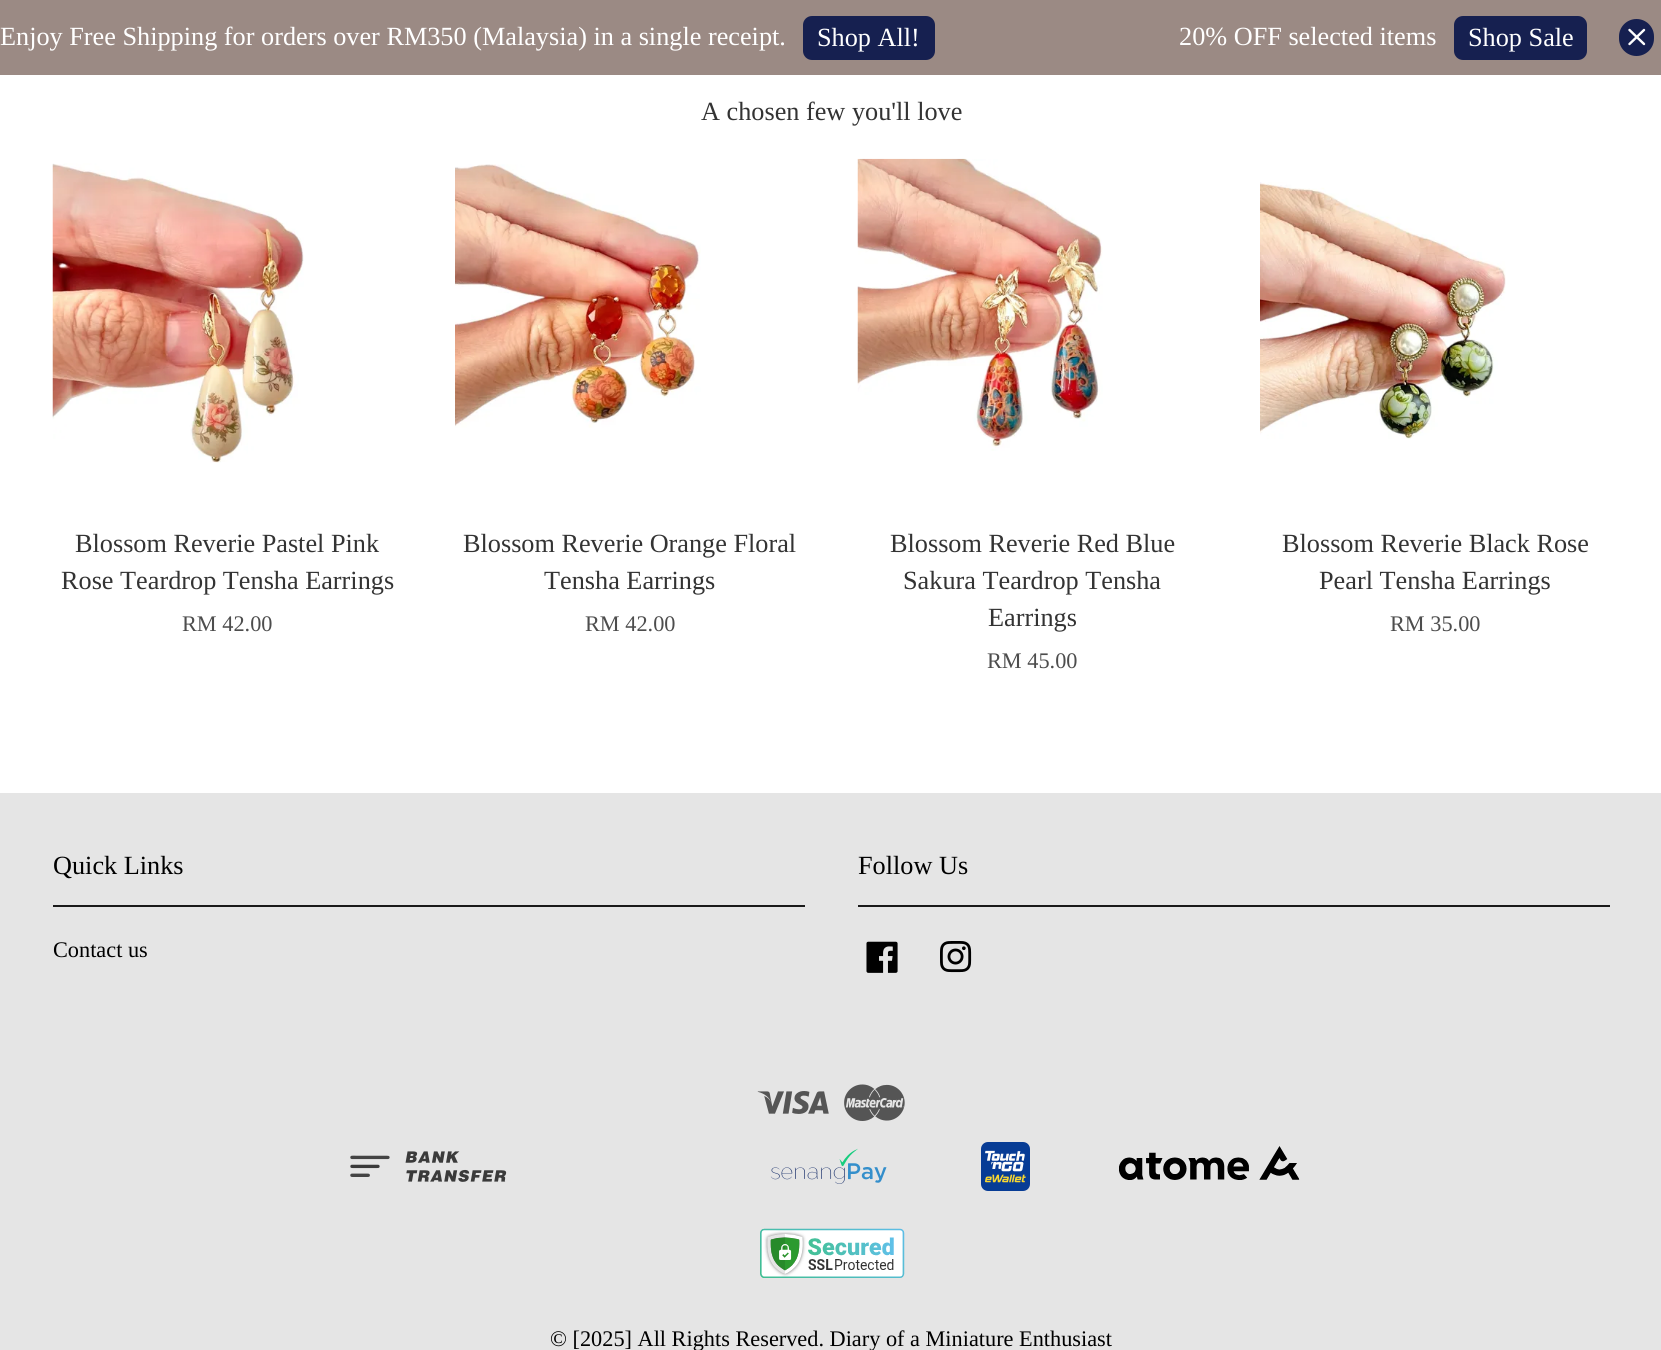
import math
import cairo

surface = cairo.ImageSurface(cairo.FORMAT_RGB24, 1661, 1350)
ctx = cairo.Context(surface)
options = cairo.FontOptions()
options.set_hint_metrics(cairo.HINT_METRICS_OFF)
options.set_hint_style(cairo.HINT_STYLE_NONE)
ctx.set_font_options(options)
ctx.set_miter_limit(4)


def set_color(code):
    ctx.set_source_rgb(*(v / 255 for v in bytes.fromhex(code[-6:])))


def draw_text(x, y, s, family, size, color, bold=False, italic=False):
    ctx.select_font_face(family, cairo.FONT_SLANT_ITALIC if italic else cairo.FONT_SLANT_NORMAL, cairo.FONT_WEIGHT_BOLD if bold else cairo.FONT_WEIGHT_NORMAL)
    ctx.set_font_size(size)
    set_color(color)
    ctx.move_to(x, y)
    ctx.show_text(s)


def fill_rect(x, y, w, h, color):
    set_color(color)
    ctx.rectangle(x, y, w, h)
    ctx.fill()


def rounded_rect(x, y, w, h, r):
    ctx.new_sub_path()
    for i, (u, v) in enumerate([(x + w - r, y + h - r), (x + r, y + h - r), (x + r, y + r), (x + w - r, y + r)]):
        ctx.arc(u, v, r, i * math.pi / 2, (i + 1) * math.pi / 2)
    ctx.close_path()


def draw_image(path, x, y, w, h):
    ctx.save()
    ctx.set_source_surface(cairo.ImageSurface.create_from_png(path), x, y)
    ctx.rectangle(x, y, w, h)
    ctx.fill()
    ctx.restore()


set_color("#ffffff")
ctx.paint()
fill_rect(0, 0, 1661, 75, "#9b8a84")
draw_text(0, 45, "Enjoy Free Shipping for orders over RM350 (Malaysia) in a single receipt.", "Liberation Serif", 26.25, "#ffffff")
set_color("#162050")
rounded_rect(803, 16, 132, 44, 9)
ctx.fill()
draw_text(817, 46, "Shop All!", "Liberation Serif", 26.25, "#ffffff")
draw_text(1179, 45, "20% OFF selected items", "Liberation Serif", 26.25, "#ffffff")
set_color("#162050")
rounded_rect(1454, 16, 133, 44, 9)
ctx.fill()
draw_text(1468, 46, "Shop Sale", "Liberation Serif", 26.25, "#ffffff")
set_color("#162050")
rounded_rect(1619, 19, 35, 37, 17.5)
ctx.fill()
ctx.new_path()
ctx.move_to(1644, 30)
ctx.line_to(1629.5, 44)
ctx.move_to(1629.5, 30)
ctx.line_to(1644, 44)
set_color("#ffffff")
ctx.set_line_width(2.4)
ctx.set_line_cap(cairo.LINE_CAP_ROUND)
ctx.set_line_join(cairo.LINE_JOIN_ROUND)
ctx.stroke()
draw_text(701, 120, "A chosen few you'll love", "Liberation Serif", 26.25, "#333333")
draw_image("assets/img1.png", 52, 163, 252, 300)
draw_text(75, 552, "Blossom Reverie Pastel Pink", "Liberation Serif", 26.25, "#333333")
draw_text(61, 589, "Rose Teardrop Tensha Earrings", "Liberation Serif", 26.25, "#333333")
draw_text(182, 631, "RM 42.00", "Liberation Serif", 22.3, "#4d4d4d")
draw_image("assets/img2.png", 455, 164, 246, 264)
draw_text(463, 552, "Blossom Reverie Orange Floral", "Liberation Serif", 26.25, "#333333")
draw_text(544, 589, "Tensha Earrings", "Liberation Serif", 26.25, "#333333")
draw_text(585, 631, "RM 42.00", "Liberation Serif", 22.3, "#4d4d4d")
draw_image("assets/img3.png", 857, 158, 246, 293)
draw_text(890, 552, "Blossom Reverie Red Blue", "Liberation Serif", 26.25, "#333333")
draw_text(903, 589, "Sakura Teardrop Tensha", "Liberation Serif", 26.25, "#333333")
draw_text(988, 626, "Earrings", "Liberation Serif", 26.25, "#333333")
draw_text(987, 668, "RM 45.00", "Liberation Serif", 22.3, "#4d4d4d")
draw_image("assets/img4.png", 1260, 182, 246, 257)
draw_text(1282, 552, "Blossom Reverie Black Rose", "Liberation Serif", 26.25, "#333333")
draw_text(1319, 589, "Pearl Tensha Earrings", "Liberation Serif", 26.25, "#333333")
draw_text(1390, 631, "RM 35.00", "Liberation Serif", 22.3, "#4d4d4d")
fill_rect(0, 793, 1661, 557, "#e5e5e5")
fill_rect(53, 905, 752, 2, "#1a1a1a")
draw_text(53, 874, "Quick Links", "Liberation Serif", 26.25, "#000000")
draw_text(53, 957, "Contact us", "Liberation Serif", 22.3, "#000000")
fill_rect(858, 905, 752, 2, "#1a1a1a")
draw_text(858, 874, "Follow Us", "Liberation Serif", 26.25, "#000000")
draw_image("assets/img5.png", 866, 941, 32, 32)
draw_image("assets/img6.png", 940, 941, 32, 32)
draw_image("assets/img7.png", 757, 1091, 72, 23)
draw_image("assets/img8.png", 844, 1084, 61, 37)
draw_image("assets/img9.png", 350, 1151, 157, 31)
draw_image("assets/img10.png", 770, 1148, 117, 36)
draw_image("assets/img11.png", 981, 1142, 49, 49)
draw_image("assets/img12.png", 1119, 1146, 181, 34)
draw_image("assets/img13.png", 760, 1228, 145, 50)
draw_text(550, 1346, "© [2025] All Rights Reserved. Diary of a Miniature Enthusiast", "Liberation Serif", 22.3, "#000000")
surface.write_to_png("output.png")
